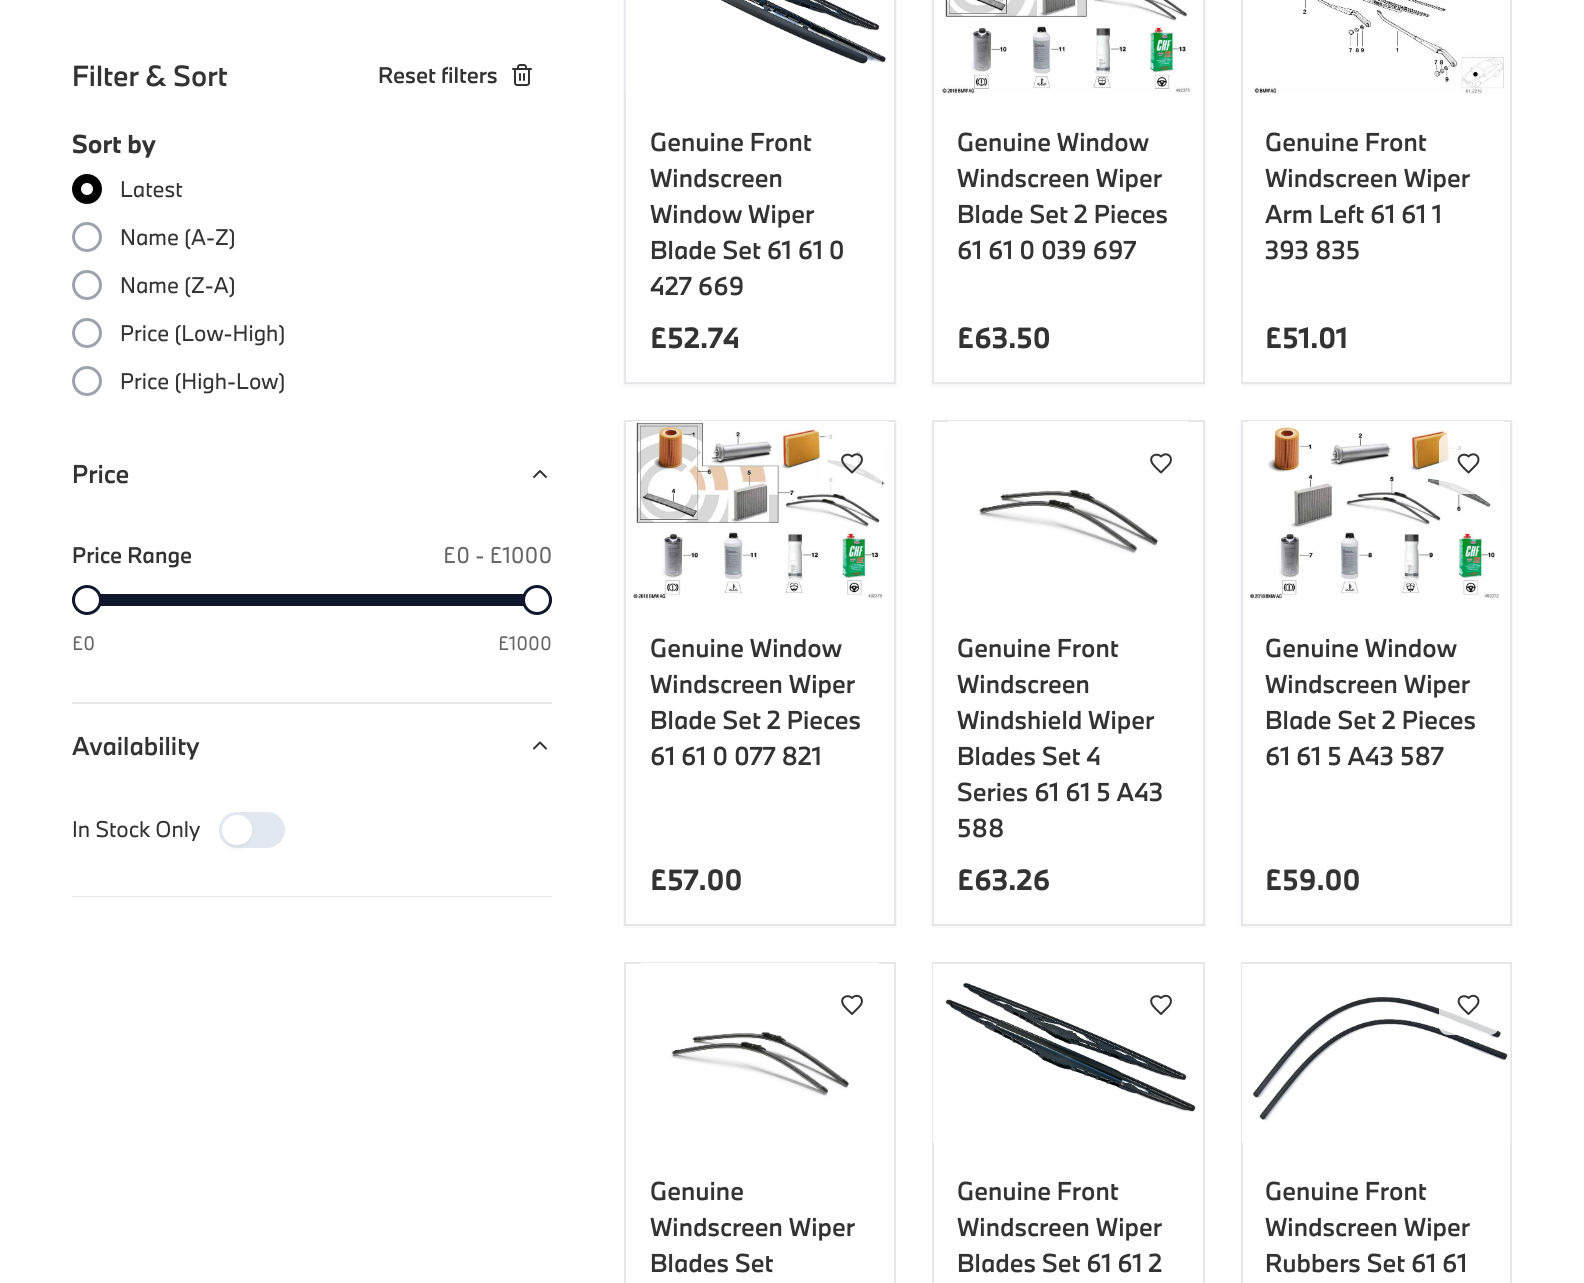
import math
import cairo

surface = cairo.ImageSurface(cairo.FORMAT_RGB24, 1584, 1283)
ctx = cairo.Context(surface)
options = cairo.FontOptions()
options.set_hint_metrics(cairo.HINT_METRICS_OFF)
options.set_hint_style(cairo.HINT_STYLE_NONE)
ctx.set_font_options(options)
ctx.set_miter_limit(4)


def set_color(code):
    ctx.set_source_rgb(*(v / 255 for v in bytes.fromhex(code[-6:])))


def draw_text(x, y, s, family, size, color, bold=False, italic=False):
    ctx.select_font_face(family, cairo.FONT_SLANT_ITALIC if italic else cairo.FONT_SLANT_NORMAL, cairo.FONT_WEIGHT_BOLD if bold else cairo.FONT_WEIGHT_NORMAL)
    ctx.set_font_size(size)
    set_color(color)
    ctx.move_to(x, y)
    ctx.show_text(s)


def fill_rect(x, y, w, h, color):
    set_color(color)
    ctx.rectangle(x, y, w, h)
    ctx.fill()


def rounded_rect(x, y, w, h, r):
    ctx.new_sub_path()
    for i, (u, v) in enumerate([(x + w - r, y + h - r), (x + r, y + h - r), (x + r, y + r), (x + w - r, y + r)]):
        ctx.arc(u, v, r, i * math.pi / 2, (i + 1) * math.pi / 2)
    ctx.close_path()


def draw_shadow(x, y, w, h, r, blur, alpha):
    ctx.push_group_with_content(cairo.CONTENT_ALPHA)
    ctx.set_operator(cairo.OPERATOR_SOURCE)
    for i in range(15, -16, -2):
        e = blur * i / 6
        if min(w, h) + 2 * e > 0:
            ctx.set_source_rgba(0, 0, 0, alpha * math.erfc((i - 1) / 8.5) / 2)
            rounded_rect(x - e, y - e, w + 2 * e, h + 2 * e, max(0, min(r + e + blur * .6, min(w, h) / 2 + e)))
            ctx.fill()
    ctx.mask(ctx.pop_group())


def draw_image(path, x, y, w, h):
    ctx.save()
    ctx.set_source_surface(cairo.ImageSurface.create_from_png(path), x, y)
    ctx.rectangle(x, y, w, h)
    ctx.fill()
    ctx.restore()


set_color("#ffffff")
ctx.paint()
draw_text(72, 86, "Filter & Sort", "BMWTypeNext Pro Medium", 27, "#333333")
draw_text(378, 83, "Reset filters", "BMWTypeNext Pro Medium", 21, "#333333")
draw_image("assets/img1.png", 512, 64, 20, 22)
draw_text(72, 153, "Sort by", "BMWTypeNext Pro", 24, "#333333", bold=True)
set_color("#000000")
ctx.new_path()
ctx.arc(87, 189, 13.5, 0, 2 * math.pi)
ctx.fill_preserve()
ctx.set_line_width(3)
ctx.stroke()
set_color("#ffffff")
ctx.arc(87, 189, 6, 0, 2 * math.pi)
ctx.fill()
draw_text(120, 197, "Latest", "BMWTypeNext Pro", 21, "#333333")
ctx.new_path()
ctx.arc(87, 237, 13.5, 0, 2 * math.pi)
set_color("#9ca3af")
ctx.stroke()
draw_text(120, 245, "Name (A-Z)", "BMWTypeNext Pro", 21, "#333333")
ctx.new_path()
ctx.arc(87, 285, 13.5, 0, 2 * math.pi)
set_color("#9ca3af")
ctx.stroke()
draw_text(120, 293, "Name (Z-A)", "BMWTypeNext Pro", 21, "#333333")
ctx.new_path()
ctx.arc(87, 333, 13.5, 0, 2 * math.pi)
set_color("#9ca3af")
ctx.stroke()
draw_text(120, 341, "Price (Low-High)", "BMWTypeNext Pro", 21, "#333333")
ctx.new_path()
ctx.arc(87, 381, 13.5, 0, 2 * math.pi)
set_color("#9ca3af")
ctx.stroke()
draw_text(120, 389, "Price (High-Low)", "BMWTypeNext Pro", 21, "#333333")
fill_rect(72, 702, 480, 2, "#e5e7eb")
draw_text(72, 483, "Price", "BMWTypeNext Pro Medium", 24, "#333333")
ctx.new_path()
ctx.move_to(546, 477)
ctx.line_to(540, 471)
ctx.line_to(534, 477)
ctx.set_line_width(2)
ctx.set_line_cap(cairo.LINE_CAP_ROUND)
ctx.set_line_join(cairo.LINE_JOIN_ROUND)
ctx.stroke()
draw_text(72, 563, "Price Range", "BMWTypeNext Pro Medium", 21, "#333333")
draw_text(443, 563, "£0 - £1000", "BMWTypeNext Pro", 21, "#666666")
set_color("#0f172a")
rounded_rect(72, 594, 480, 12, 6)
ctx.fill()
set_color("#ffffff")
ctx.arc(87, 600, 13.5, 0, 2 * math.pi)
ctx.fill_preserve()
set_color("#0f172a")
ctx.set_line_width(3)
ctx.set_line_cap(cairo.LINE_CAP_BUTT)
ctx.set_line_join(cairo.LINE_JOIN_MITER)
ctx.stroke()
set_color("#ffffff")
ctx.arc(537, 600, 13.5, 0, 2 * math.pi)
ctx.fill_preserve()
set_color("#0f172a")
ctx.stroke()
draw_text(72, 650, "£0", "BMWTypeNext Pro", 18, "#666666")
draw_text(498, 650, "£1000", "BMWTypeNext Pro", 18, "#666666")
fill_rect(72, 896, 480, 1, "#e5e7eb")
draw_text(72, 755, "Availability", "BMWTypeNext Pro Medium", 24, "#333333")
ctx.new_path()
ctx.move_to(546, 748.5)
ctx.line_to(540, 742.5)
ctx.line_to(534, 748.5)
ctx.set_line_width(2)
ctx.set_line_cap(cairo.LINE_CAP_ROUND)
ctx.set_line_join(cairo.LINE_JOIN_ROUND)
ctx.stroke()
draw_text(72, 837, "In Stock Only", "BMWTypeNext Pro", 21, "#333333")
set_color("#e2e8f0")
rounded_rect(219, 812, 66, 36, 18)
ctx.fill()
set_color("#000000")
draw_shadow(228, 827, 18, 18, 9, 4.5, 0.1)
set_color("#ffffff")
ctx.arc(237, 830, 15, 0, 2 * math.pi)
ctx.fill()
set_color("#000000")
draw_shadow(624, -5, 272, 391, 0, 1.5, 0.05)
set_color("#ffffff")
ctx.rectangle(625, -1, 270, 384)
ctx.fill_preserve()
set_color("#e5e7eb")
ctx.set_line_cap(cairo.LINE_CAP_BUTT)
ctx.set_line_join(cairo.LINE_JOIN_MITER)
ctx.stroke()
draw_image("assets/img2.png", 625, 0, 261, 92)
draw_text(650, 151, "Genuine Front", "BMWTypeNext Pro Medium", 24, "#333333")
draw_text(650, 187, "Windscreen", "BMWTypeNext Pro Medium", 24, "#333333")
draw_text(650, 223, "Window Wiper", "BMWTypeNext Pro Medium", 24, "#333333")
draw_text(650, 259, "Blade Set 61 61 0", "BMWTypeNext Pro Medium", 24, "#333333")
draw_text(650, 295, "427 669", "BMWTypeNext Pro Medium", 24, "#333333")
draw_text(650, 348, "£52.74", "BMWTypeNext Pro", 27, "#333333", bold=True)
set_color("#000000")
draw_shadow(932, -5, 273, 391, 0, 1.5, 0.05)
set_color("#ffffff")
ctx.rectangle(933, -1, 271, 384)
ctx.fill_preserve()
set_color("#e5e7eb")
ctx.stroke()
draw_image("assets/img3.png", 941, 0, 250, 94)
draw_text(957, 151, "Genuine Window", "BMWTypeNext Pro Medium", 24, "#333333")
draw_text(957, 187, "Windscreen Wiper", "BMWTypeNext Pro Medium", 24, "#333333")
draw_text(957, 223, "Blade Set 2 Pieces", "BMWTypeNext Pro Medium", 24, "#333333")
draw_text(957, 259, "61 61 0 039 697", "BMWTypeNext Pro Medium", 24, "#333333")
draw_text(957, 348, "£63.50", "BMWTypeNext Pro", 27, "#333333", bold=True)
ctx.save()
ctx.rectangle(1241, 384, 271, 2)
ctx.clip()
set_color("#000000")
draw_shadow(1241, -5, 271, 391, 0, 1.5, 0.05)
ctx.restore()
ctx.rectangle(1242, -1, 269, 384)
set_color("#e5e7eb")
ctx.stroke()
draw_image("assets/img4.png", 1253, 0, 252, 94)
draw_text(1265, 151, "Genuine Front", "BMWTypeNext Pro Medium", 24, "#333333")
draw_text(1265, 187, "Windscreen Wiper", "BMWTypeNext Pro Medium", 24, "#333333")
draw_text(1265, 223, "Arm Left 61 61 1", "BMWTypeNext Pro Medium", 24, "#333333")
draw_text(1265, 259, "393 835", "BMWTypeNext Pro Medium", 24, "#333333")
draw_text(1265, 348, "£51.01", "BMWTypeNext Pro", 27, "#333333", bold=True)
set_color("#000000")
draw_shadow(624, 422, 272, 505, 0, 1.5, 0.05)
set_color("#ffffff")
ctx.rectangle(625, 421, 270, 504)
ctx.fill_preserve()
set_color("#e5e7eb")
ctx.stroke()
draw_image("assets/img5.png", 631, 421, 257, 179)
ctx.set_source_rgba(1, 1, 1, 0.8)
rounded_rect(822, 434, 60, 60, 9)
ctx.fill()
ctx.new_path()
ctx.move_to(859, 465.5)
ctx.curve_to(866.5, 458, 858, 450.5, 852, 456.5)
ctx.curve_to(848, 452.5, 840.5, 455.5, 842.5, 461.5)
ctx.curve_to(843.5, 465, 849.5, 470, 852, 472.5)
ctx.close_path()
set_color("#333333")
ctx.set_line_cap(cairo.LINE_CAP_ROUND)
ctx.set_line_join(cairo.LINE_JOIN_ROUND)
ctx.stroke()
draw_text(650, 657, "Genuine Window", "BMWTypeNext Pro Medium", 24, "#333333")
draw_text(650, 693, "Windscreen Wiper", "BMWTypeNext Pro Medium", 24, "#333333")
draw_text(650, 729, "Blade Set 2 Pieces", "BMWTypeNext Pro Medium", 24, "#333333")
draw_text(650, 765, "61 61 0 077 821", "BMWTypeNext Pro Medium", 24, "#333333")
draw_text(650, 890, "£57.00", "BMWTypeNext Pro", 27, "#333333", bold=True)
set_color("#000000")
draw_shadow(932, 422, 273, 505, 0, 1.5, 0.05)
set_color("#ffffff")
ctx.rectangle(933, 421, 271, 504)
ctx.fill_preserve()
set_color("#e5e7eb")
ctx.set_line_cap(cairo.LINE_CAP_BUTT)
ctx.set_line_join(cairo.LINE_JOIN_MITER)
ctx.stroke()
draw_image("assets/img6.png", 948, 421, 240, 133)
ctx.new_path()
ctx.move_to(1168, 465.5)
ctx.curve_to(1175.5, 458, 1167, 450.5, 1161, 456.5)
ctx.curve_to(1157, 452.5, 1149.5, 455.5, 1151.5, 461.5)
ctx.curve_to(1152.5, 465, 1158.5, 470, 1161, 472.5)
ctx.close_path()
set_color("#333333")
ctx.set_line_cap(cairo.LINE_CAP_ROUND)
ctx.set_line_join(cairo.LINE_JOIN_ROUND)
ctx.stroke()
draw_text(957, 657, "Genuine Front", "BMWTypeNext Pro Medium", 24, "#333333")
draw_text(957, 693, "Windscreen", "BMWTypeNext Pro Medium", 24, "#333333")
draw_text(957, 729, "Windshield Wiper", "BMWTypeNext Pro Medium", 24, "#333333")
draw_text(957, 765, "Blades Set 4", "BMWTypeNext Pro Medium", 24, "#333333")
draw_text(957, 801, "Series 61 61 5 A43", "BMWTypeNext Pro Medium", 24, "#333333")
draw_text(957, 837, "588", "BMWTypeNext Pro Medium", 24, "#333333")
draw_text(957, 890, "£63.26", "BMWTypeNext Pro", 27, "#333333", bold=True)
set_color("#000000")
draw_shadow(1241, 422, 271, 505, 0, 1.5, 0.05)
set_color("#ffffff")
ctx.rectangle(1242, 421, 269, 504)
ctx.fill_preserve()
set_color("#e5e7eb")
ctx.set_line_cap(cairo.LINE_CAP_BUTT)
ctx.set_line_join(cairo.LINE_JOIN_MITER)
ctx.stroke()
draw_image("assets/img7.png", 1248, 421, 257, 179)
ctx.set_source_rgba(1, 1, 1, 0.8)
rounded_rect(1439, 434, 60, 60, 9)
ctx.fill()
ctx.new_path()
ctx.move_to(1475.5, 465.5)
ctx.curve_to(1483, 458, 1474.5, 450.5, 1468.5, 456.5)
ctx.curve_to(1464.5, 452.5, 1457, 455.5, 1459, 461.5)
ctx.curve_to(1460, 465, 1466, 470, 1468.5, 472.5)
ctx.close_path()
set_color("#333333")
ctx.set_line_cap(cairo.LINE_CAP_ROUND)
ctx.set_line_join(cairo.LINE_JOIN_ROUND)
ctx.stroke()
draw_text(1265, 657, "Genuine Window", "BMWTypeNext Pro Medium", 24, "#333333")
draw_text(1265, 693, "Windscreen Wiper", "BMWTypeNext Pro Medium", 24, "#333333")
draw_text(1265, 729, "Blade Set 2 Pieces", "BMWTypeNext Pro Medium", 24, "#333333")
draw_text(1265, 765, "61 61 5 A43 587", "BMWTypeNext Pro Medium", 24, "#333333")
draw_text(1265, 890, "£59.00", "BMWTypeNext Pro", 27, "#333333", bold=True)
ctx.rectangle(625, 963, 270, 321)
set_color("#e5e7eb")
ctx.set_line_cap(cairo.LINE_CAP_BUTT)
ctx.set_line_join(cairo.LINE_JOIN_MITER)
ctx.stroke()
draw_image("assets/img8.png", 640, 962, 239, 135)
ctx.new_path()
ctx.move_to(859, 1007)
ctx.curve_to(866.5, 999.5, 858, 992, 852, 998)
ctx.curve_to(848, 994, 840.5, 997, 842.5, 1003)
ctx.curve_to(843.5, 1006.5, 849.5, 1011.5, 852, 1014)
ctx.close_path()
set_color("#333333")
ctx.set_line_cap(cairo.LINE_CAP_ROUND)
ctx.set_line_join(cairo.LINE_JOIN_ROUND)
ctx.stroke()
draw_text(650, 1200, "Genuine", "BMWTypeNext Pro Medium", 24, "#333333")
draw_text(650, 1236, "Windscreen Wiper", "BMWTypeNext Pro Medium", 24, "#333333")
draw_text(650, 1272, "Blades Set", "BMWTypeNext Pro Medium", 24, "#333333")
ctx.rectangle(933, 963, 271, 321)
set_color("#e5e7eb")
ctx.set_line_cap(cairo.LINE_CAP_BUTT)
ctx.set_line_join(cairo.LINE_JOIN_MITER)
ctx.stroke()
draw_image("assets/img9.png", 933, 964, 263, 179)
ctx.new_path()
ctx.move_to(1168, 1007)
ctx.curve_to(1175.5, 999.5, 1167, 992, 1161, 998)
ctx.curve_to(1157, 994, 1149.5, 997, 1151.5, 1003)
ctx.curve_to(1152.5, 1006.5, 1158.5, 1011.5, 1161, 1014)
ctx.close_path()
set_color("#333333")
ctx.set_line_cap(cairo.LINE_CAP_ROUND)
ctx.set_line_join(cairo.LINE_JOIN_ROUND)
ctx.stroke()
draw_text(957, 1200, "Genuine Front", "BMWTypeNext Pro Medium", 24, "#333333")
draw_text(957, 1236, "Windscreen Wiper", "BMWTypeNext Pro Medium", 24, "#333333")
draw_text(957, 1272, "Blades Set 61 61 2", "BMWTypeNext Pro Medium", 24, "#333333")
ctx.rectangle(1242, 963, 269, 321)
set_color("#e5e7eb")
ctx.set_line_cap(cairo.LINE_CAP_BUTT)
ctx.set_line_join(cairo.LINE_JOIN_MITER)
ctx.stroke()
draw_image("assets/img10.png", 1242, 964, 269, 179)
ctx.set_source_rgba(1, 1, 1, 0.8)
rounded_rect(1439, 975, 60, 60, 9)
ctx.fill()
ctx.new_path()
ctx.move_to(1475.5, 1007)
ctx.curve_to(1483, 999.5, 1474.5, 992, 1468.5, 998)
ctx.curve_to(1464.5, 994, 1457, 997, 1459, 1003)
ctx.curve_to(1460, 1006.5, 1466, 1011.5, 1468.5, 1014)
ctx.close_path()
set_color("#333333")
ctx.set_line_cap(cairo.LINE_CAP_ROUND)
ctx.set_line_join(cairo.LINE_JOIN_ROUND)
ctx.stroke()
draw_text(1265, 1200, "Genuine Front", "BMWTypeNext Pro Medium", 24, "#333333")
draw_text(1265, 1236, "Windscreen Wiper", "BMWTypeNext Pro Medium", 24, "#333333")
draw_text(1265, 1272, "Rubbers Set 61 61", "BMWTypeNext Pro Medium", 24, "#333333")
surface.write_to_png("output.png")
